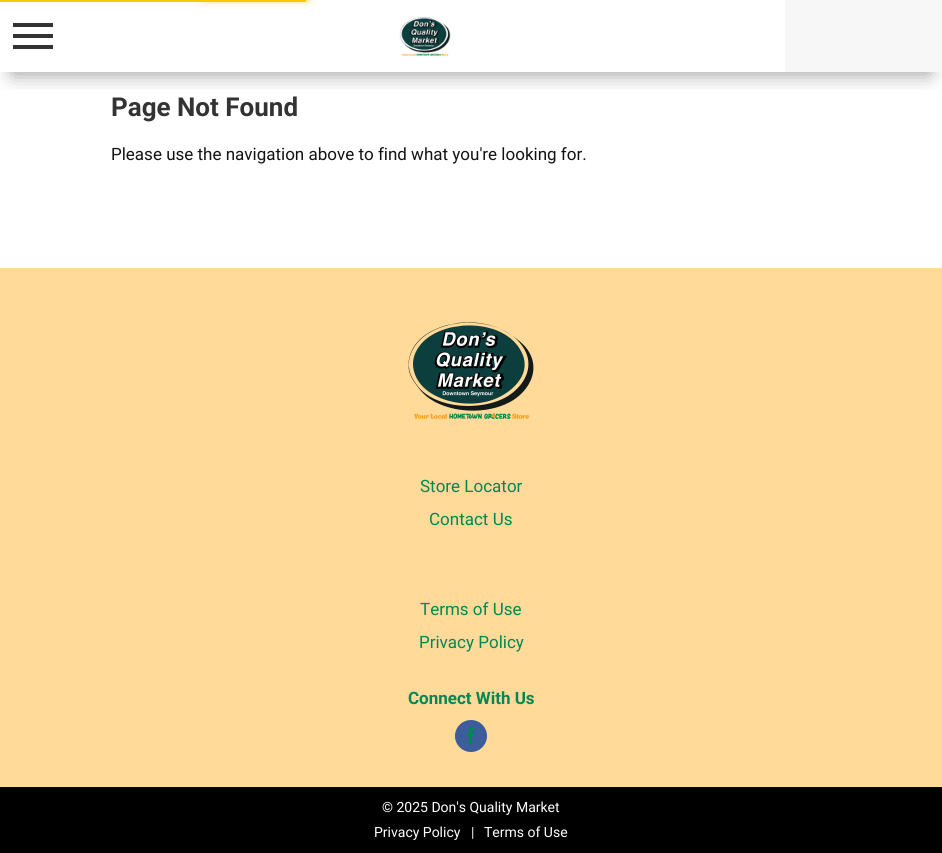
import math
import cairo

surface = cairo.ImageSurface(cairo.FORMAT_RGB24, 942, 853)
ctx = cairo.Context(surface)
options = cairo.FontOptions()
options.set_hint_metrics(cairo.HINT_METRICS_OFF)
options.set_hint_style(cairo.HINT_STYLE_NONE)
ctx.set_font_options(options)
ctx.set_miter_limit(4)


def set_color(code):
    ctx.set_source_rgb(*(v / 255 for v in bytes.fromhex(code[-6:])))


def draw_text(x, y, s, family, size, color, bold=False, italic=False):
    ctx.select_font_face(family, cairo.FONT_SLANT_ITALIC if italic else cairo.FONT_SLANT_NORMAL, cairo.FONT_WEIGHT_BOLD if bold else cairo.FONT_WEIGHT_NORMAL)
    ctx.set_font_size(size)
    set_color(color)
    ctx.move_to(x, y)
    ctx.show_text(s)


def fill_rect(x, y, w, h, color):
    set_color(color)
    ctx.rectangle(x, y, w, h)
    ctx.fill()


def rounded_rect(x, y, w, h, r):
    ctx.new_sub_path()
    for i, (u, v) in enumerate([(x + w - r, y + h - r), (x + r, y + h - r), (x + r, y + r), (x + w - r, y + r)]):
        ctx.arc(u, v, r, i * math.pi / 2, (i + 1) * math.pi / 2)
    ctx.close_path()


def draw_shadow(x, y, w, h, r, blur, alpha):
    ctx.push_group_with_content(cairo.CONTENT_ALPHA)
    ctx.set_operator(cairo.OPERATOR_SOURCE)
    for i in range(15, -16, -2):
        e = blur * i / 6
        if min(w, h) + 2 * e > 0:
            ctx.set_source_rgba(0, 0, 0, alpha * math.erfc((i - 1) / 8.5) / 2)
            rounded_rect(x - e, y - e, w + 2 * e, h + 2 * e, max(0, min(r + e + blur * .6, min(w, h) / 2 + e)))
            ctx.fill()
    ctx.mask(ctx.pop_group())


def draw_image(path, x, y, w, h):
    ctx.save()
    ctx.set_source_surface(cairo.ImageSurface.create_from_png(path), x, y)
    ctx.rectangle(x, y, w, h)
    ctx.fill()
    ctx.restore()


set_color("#ffffff")
ctx.paint()
ctx.save()
ctx.rectangle(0, 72, 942, 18)
ctx.clip()
set_color("#000000")
draw_shadow(13, 28, 916, 46, 0, 10, 0.4)
ctx.restore()
fill_rect(0, 0, 306, 2, "#fac901")
set_color("#fac901")
draw_shadow(206, -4, 100, 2, 0, 2.5, 1)
draw_shadow(206, -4, 100, 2, 0, 5, 1)
fill_rect(13, 34, 40, 4, "#333333")
fill_rect(13, 23, 40, 4, "#333333")
fill_rect(13, 45, 40, 4, "#333333")
draw_image("assets/img1.png", 399, 17, 52, 40)
fill_rect(785, 0, 157, 72, "#f7f7f7")
draw_text(111, 116, "Page Not Found", "Roboto", 26, "#333333", bold=True)
draw_text(111, 160, "Please use the navigation above to find what you're looking for.", "Roboto", 17, "#121212")
fill_rect(0, 268, 942, 519, "#ffda99")
draw_image("assets/img2.png", 408, 322, 126, 97)
draw_text(420, 492, "Store Locator", "Roboto", 17, "#008755")
draw_text(429, 525, "Contact Us", "Roboto", 17, "#008755")
draw_text(420, 615, "Terms of Use", "Roboto", 17, "#008755")
draw_text(419, 648, "Privacy Policy", "Roboto", 17, "#008755")
draw_text(408, 704, "Connect With Us", "Roboto", 17, "#008755", bold=True)
set_color("#3c5c9c")
ctx.new_path()
ctx.arc(471, 736, 16, 0, 2 * math.pi)
ctx.fill()
draw_image("assets/img3.png", 467, 727, 8, 18)
fill_rect(0, 787, 942, 66, "#000000")
draw_text(382, 812, "© 2025 Don's Quality Market", "Roboto", 14, "#ffffff")
draw_text(374, 837, "Privacy Policy", "Roboto", 14, "#ffffff")
draw_text(471, 837, "|", "Roboto", 14, "#f2f2f2")
draw_text(484, 837, "Terms of Use", "Roboto", 14, "#ffffff")
surface.write_to_png("output.png")
